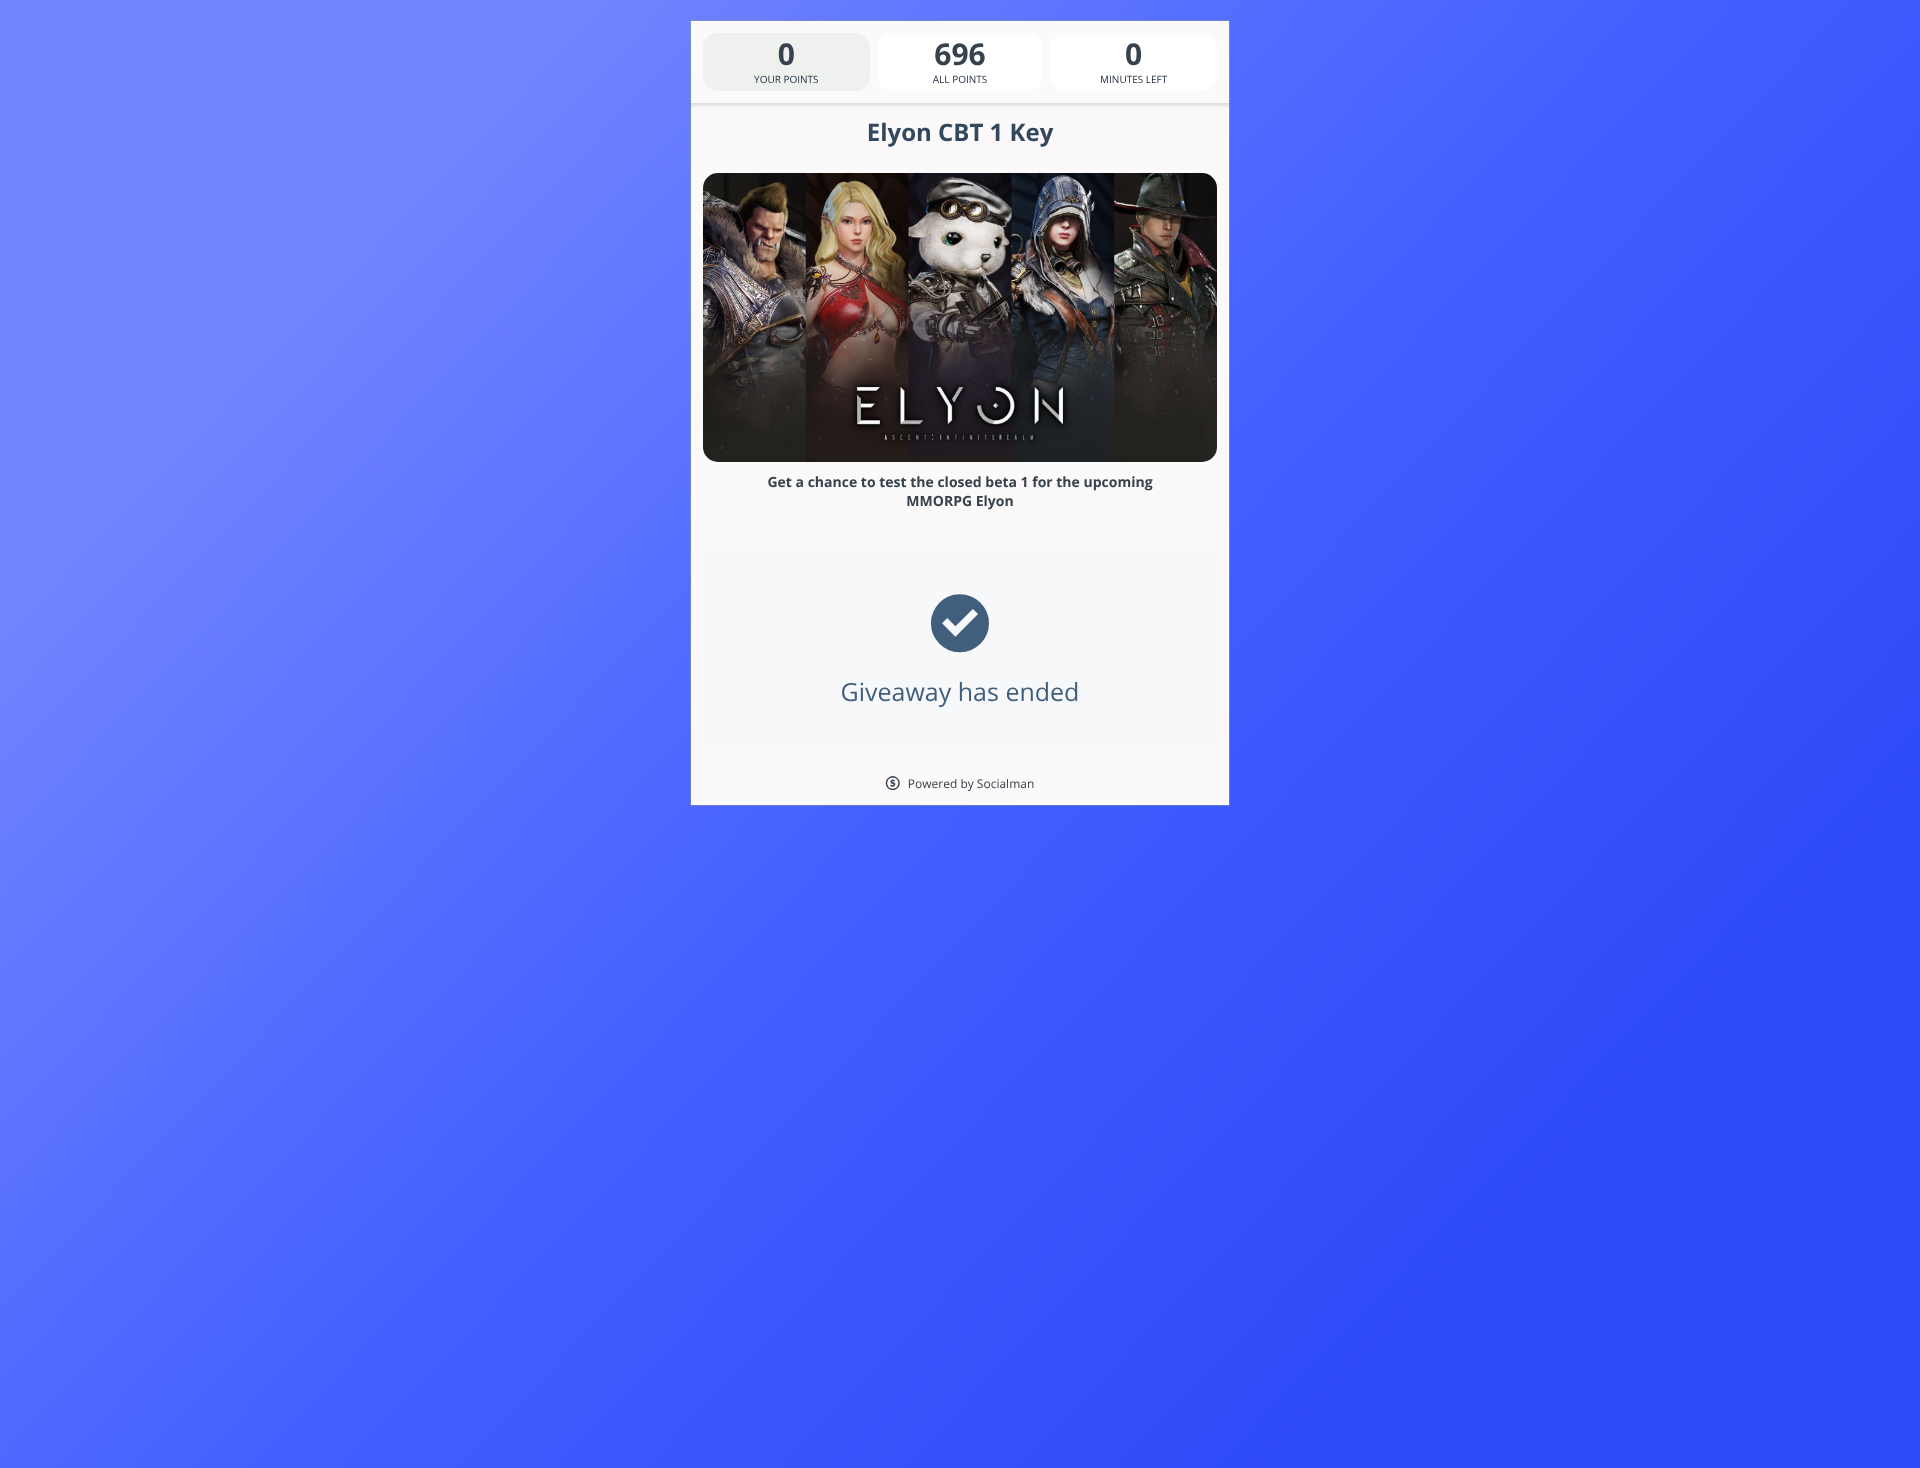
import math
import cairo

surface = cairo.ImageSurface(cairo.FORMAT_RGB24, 1920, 1468)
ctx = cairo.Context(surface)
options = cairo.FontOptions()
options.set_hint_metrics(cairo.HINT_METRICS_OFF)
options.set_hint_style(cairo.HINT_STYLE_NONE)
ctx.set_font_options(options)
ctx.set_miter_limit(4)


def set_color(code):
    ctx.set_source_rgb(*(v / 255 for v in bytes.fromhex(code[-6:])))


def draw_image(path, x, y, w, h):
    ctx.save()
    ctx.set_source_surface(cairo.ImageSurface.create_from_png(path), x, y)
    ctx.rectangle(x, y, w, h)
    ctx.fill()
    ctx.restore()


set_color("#ffffff")
ctx.paint()
gradient = cairo.LinearGradient(89, -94, 1831, 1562)
gradient.add_color_stop_rgba(0.18, 0.439, 0.518, 1, 1)
gradient.add_color_stop_rgba(0.5, 0.267, 0.373, 1, 1)
gradient.add_color_stop_rgba(0.81, 0.176, 0.29, 0.969, 1)
ctx.set_source(gradient)
ctx.rectangle(0, 0, 1920, 1468)
ctx.fill()
ctx.rectangle(690.5, 20.5, 539, 785)
ctx.set_source_rgba(0.553, 0.6, 0.659, 0.5)
ctx.set_line_width(1)
ctx.stroke()
draw_image("assets/img1.png", 691, 21, 538, 784)
surface.write_to_png("output.png")
